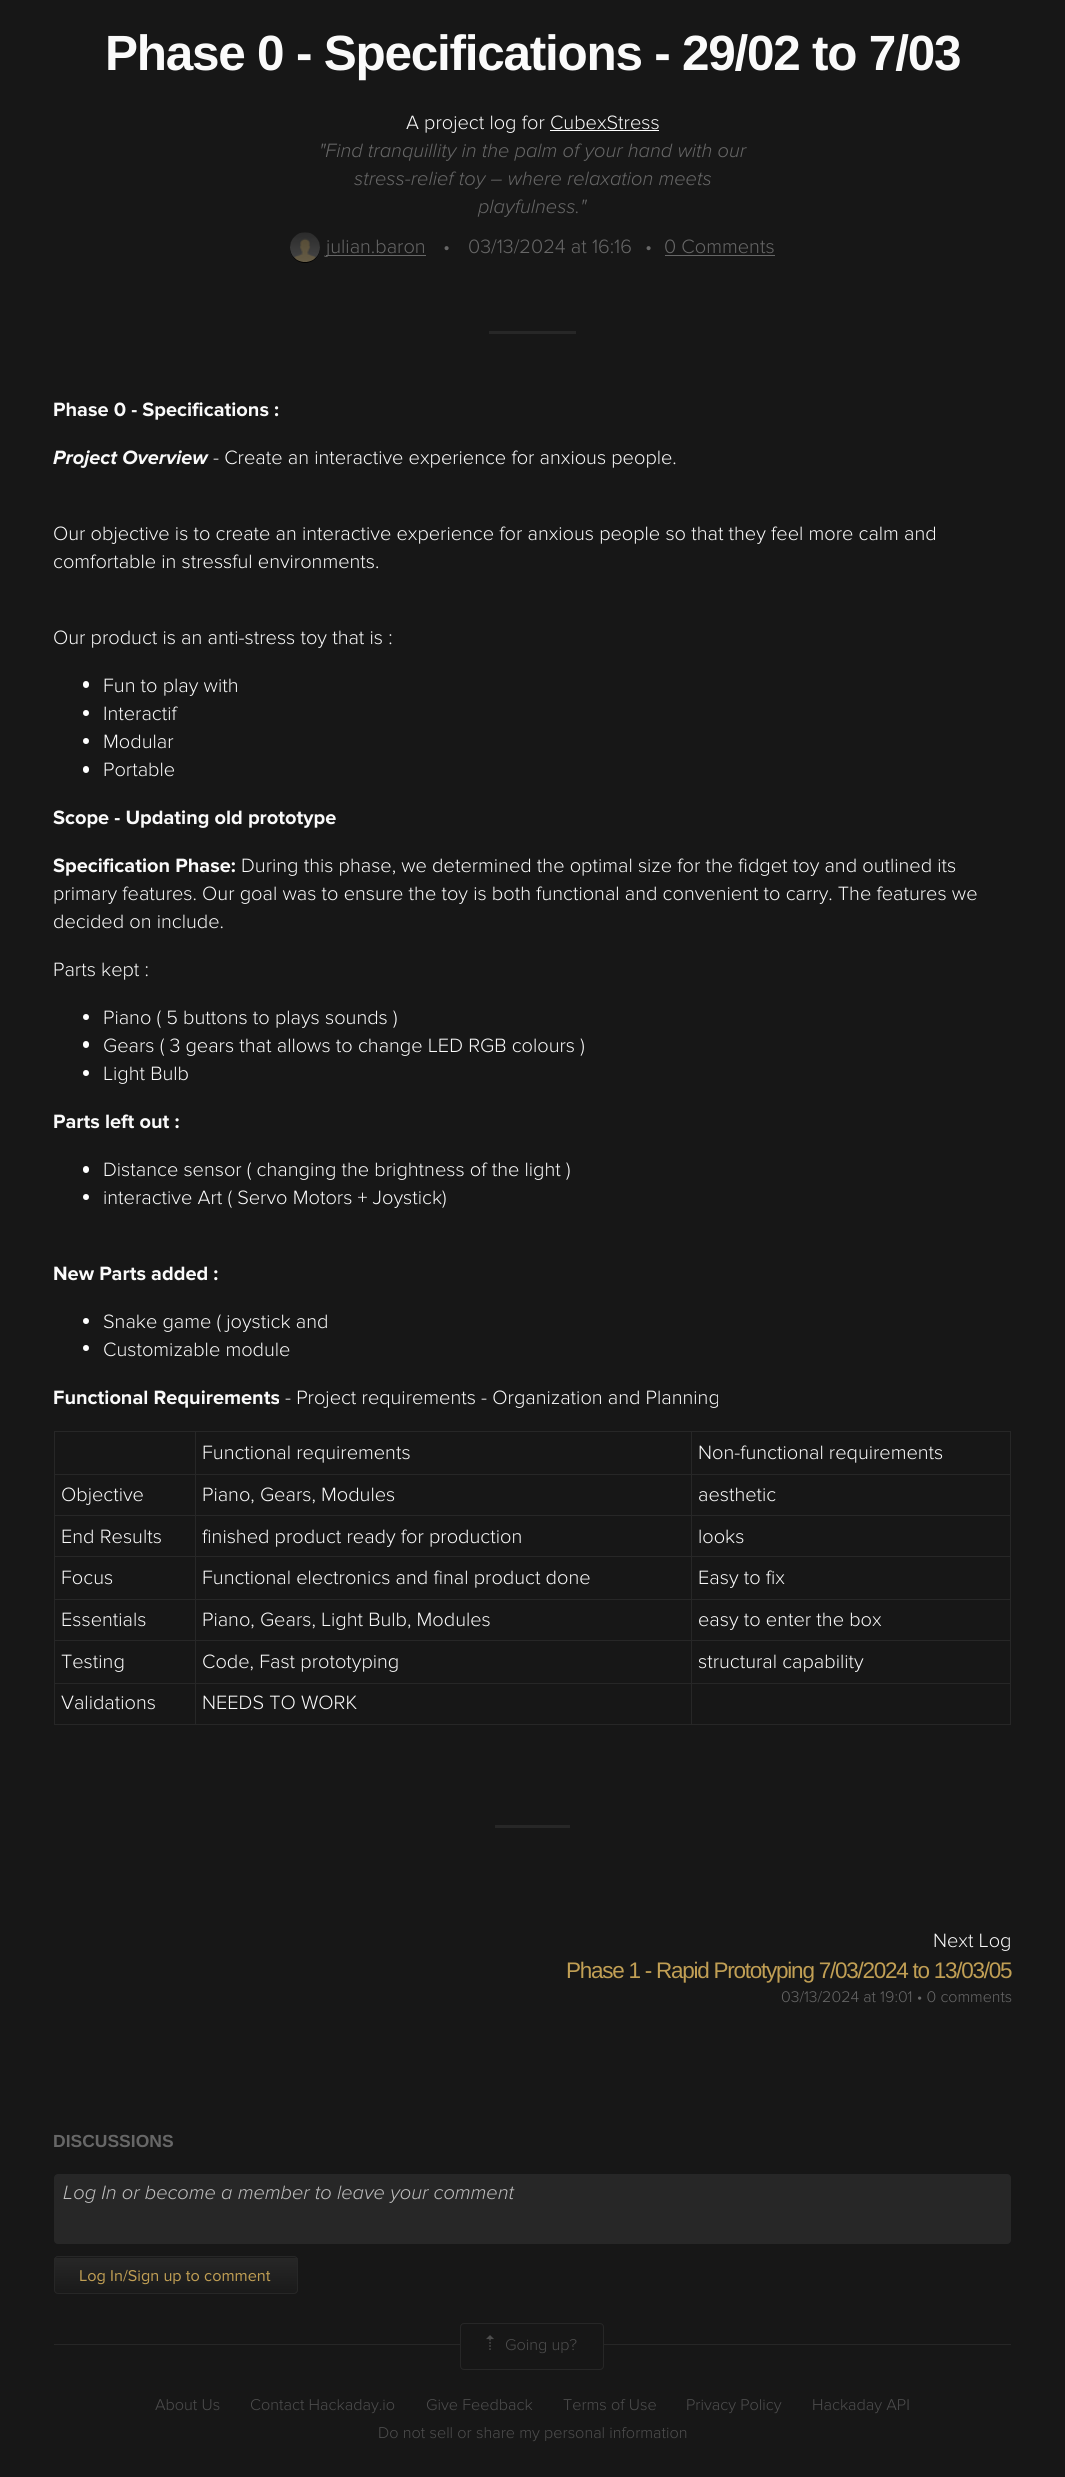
import math
import cairo

surface = cairo.ImageSurface(cairo.FORMAT_RGB24, 1065, 2477)
ctx = cairo.Context(surface)
options = cairo.FontOptions()
options.set_hint_metrics(cairo.HINT_METRICS_OFF)
options.set_hint_style(cairo.HINT_STYLE_NONE)
ctx.set_font_options(options)
ctx.set_miter_limit(4)


def set_color(code):
    ctx.set_source_rgb(*(v / 255 for v in bytes.fromhex(code[-6:])))


def draw_text(x, y, s, family, size, color, bold=False, italic=False):
    ctx.select_font_face(family, cairo.FONT_SLANT_ITALIC if italic else cairo.FONT_SLANT_NORMAL, cairo.FONT_WEIGHT_BOLD if bold else cairo.FONT_WEIGHT_NORMAL)
    ctx.set_font_size(size)
    set_color(color)
    ctx.move_to(x, y)
    ctx.show_text(s)


def draw_spaced(x, y, s, letter, word):
    ctx.move_to(x, y)
    for ch in s:
        ctx.show_text(ch)
        ctx.rel_move_to(letter + word * (ch == ' '), 0)


def fill_rect(x, y, w, h, color):
    set_color(color)
    ctx.rectangle(x, y, w, h)
    ctx.fill()


def rounded_rect(x, y, w, h, r):
    ctx.new_sub_path()
    for i, (u, v) in enumerate([(x + w - r, y + h - r), (x + r, y + h - r), (x + r, y + r), (x + w - r, y + r)]):
        ctx.arc(u, v, r, i * math.pi / 2, (i + 1) * math.pi / 2)
    ctx.close_path()


def draw_image(path, x, y, w, h):
    ctx.save()
    ctx.set_source_surface(cairo.ImageSurface.create_from_png(path), x, y)
    ctx.rectangle(x, y, w, h)
    ctx.fill()
    ctx.restore()


set_color("#171717")
ctx.paint()
ctx.select_font_face("Liberation Sans", cairo.FONT_SLANT_NORMAL, cairo.FONT_WEIGHT_BOLD)
ctx.set_font_size(49.5)
set_color("#fafafa")
draw_spaced(105, 70, "Phase 0 - Specifications - 29/02 to 7/03", -1.25, 0)
draw_text(406, 129, "A project log for CubexStress", "Proxima Nova Light", 20, "#fafafa")
fill_rect(550, 130, 109, 1, "#ffffff")
draw_text(319, 157, "\"Find tranquillity in the palm of your hand with our", "Proxima Nova Light", 20, "#676767", italic=True)
draw_text(354, 185, "stress-relief toy – where relaxation meets", "Proxima Nova Light", 20, "#676767", italic=True)
draw_text(478, 213, "playfulness.\"", "Proxima Nova Light", 20, "#676767", italic=True)
set_color("#000000")
ctx.new_path()
ctx.arc(305, 248, 15, 0, 2 * math.pi)
ctx.fill()
draw_image("assets/img1.png", 290, 232, 30, 30)
fill_rect(326, 255, 100, 1, "#676767")
draw_text(326, 253, "julian.baron", "Proxima Nova Light", 20, "#676767")
draw_text(443, 253, "•", "Proxima Nova Light", 20, "#676767")
draw_text(468, 253, "03/13/2024 at 16:16", "Proxima Nova Light", 20, "#676767")
draw_text(645, 253, "•", "Proxima Nova Light", 20, "#676767")
draw_text(664, 253, "0 Comments", "Proxima Nova Light", 20, "#676767")
fill_rect(665, 255, 110, 1, "#676767")
fill_rect(489, 331, 87, 3, "#272727")
draw_text(53, 416, "Phase 0 - Specifications :", "Proxima Nova", 20, "#fafafa", bold=True)
draw_text(53, 464, "Project Overview", "Proxima Nova", 20, "#fafafa", bold=True, italic=True)
draw_text(213, 464, "- Create an interactive experience for anxious people.", "Proxima Nova Light", 20, "#fafafa")
draw_text(53, 540, "Our objective is to create an interactive experience for anxious people so that they feel more calm and", "Proxima Nova Light", 20, "#fafafa")
draw_text(53, 568, "comfortable in stressful environments.", "Proxima Nova Light", 20, "#fafafa")
draw_text(53, 644, "Our product is an anti-stress toy that is :", "Proxima Nova Light", 20, "#fafafa")
set_color("#ffffff")
rounded_rect(83, 681, 6, 7, 3)
ctx.fill()
draw_text(103, 692, "Fun to play with", "Proxima Nova Light", 20, "#fafafa")
set_color("#ffffff")
ctx.new_path()
ctx.arc(86, 713, 3, 0, 2 * math.pi)
ctx.fill()
draw_text(103, 720, "Interactif", "Proxima Nova Light", 20, "#fafafa")
set_color("#ffffff")
ctx.new_path()
ctx.arc(86, 741, 3, 0, 2 * math.pi)
ctx.fill()
draw_text(103, 748, "Modular", "Proxima Nova Light", 20, "#fafafa")
set_color("#ffffff")
rounded_rect(83, 766, 6, 7, 3)
ctx.fill()
draw_text(103, 776, "Portable", "Proxima Nova Light", 20, "#fafafa")
draw_text(53, 824, "Scope - Updating old prototype", "Proxima Nova", 20, "#fafafa", bold=True)
draw_text(53, 872, "Specification Phase:", "Proxima Nova", 20, "#fafafa", bold=True)
draw_text(241, 872, "During this phase, we determined the optimal size for the fidget toy and outlined its", "Proxima Nova Light", 20, "#fafafa")
draw_text(53, 900, "primary features. Our goal was to ensure the toy is both functional and convenient to carry. The features we", "Proxima Nova Light", 20, "#fafafa")
draw_text(53, 928, "decided on include.", "Proxima Nova Light", 20, "#fafafa")
draw_text(53, 976, "Parts kept :", "Proxima Nova Light", 20, "#fafafa")
set_color("#ffffff")
ctx.new_path()
ctx.arc(86, 1017, 3, 0, 2 * math.pi)
ctx.fill()
draw_text(103, 1024, "Piano ( 5 buttons to plays sounds )", "Proxima Nova Light", 20, "#fafafa")
set_color("#ffffff")
rounded_rect(83, 1041, 6, 7, 3)
ctx.fill()
draw_text(103, 1052, "Gears ( 3 gears that allows to change LED RGB colours )", "Proxima Nova Light", 20, "#fafafa")
set_color("#ffffff")
ctx.new_path()
ctx.arc(86, 1073, 3, 0, 2 * math.pi)
ctx.fill()
draw_text(103, 1080, "Light Bulb", "Proxima Nova Light", 20, "#fafafa")
draw_text(53, 1128, "Parts left out :", "Proxima Nova", 20, "#fafafa", bold=True)
set_color("#ffffff")
rounded_rect(83, 1166, 6, 7, 3)
ctx.fill()
draw_text(103, 1176, "Distance sensor ( changing the brightness of the light )", "Proxima Nova Light", 20, "#fafafa")
set_color("#ffffff")
ctx.new_path()
ctx.arc(86, 1197, 3, 0, 2 * math.pi)
ctx.fill()
draw_text(103, 1204, "interactive Art ( Servo Motors + Joystick)", "Proxima Nova Light", 20, "#fafafa")
draw_text(53, 1280, "New Parts added :", "Proxima Nova", 20, "#fafafa", bold=True)
set_color("#ffffff")
ctx.new_path()
ctx.arc(86, 1321, 3, 0, 2 * math.pi)
ctx.fill()
draw_text(103, 1328, "Snake game ( joystick and", "Proxima Nova Light", 20, "#fafafa")
set_color("#ffffff")
ctx.new_path()
ctx.arc(86, 1348, 3, 0, 2 * math.pi)
ctx.fill()
draw_text(103, 1356, "Customizable module", "Proxima Nova Light", 20, "#fafafa")
draw_text(53, 1404, "Functional Requirements", "Proxima Nova", 20, "#fafafa", bold=True)
draw_text(285, 1404, "- Project requirements - Organization and Planning", "Proxima Nova Light", 20, "#fafafa")
fill_rect(691, 1431, 320, 1, "#272727")
fill_rect(691, 1474, 320, 1, "#272727")
fill_rect(691, 1515, 320, 1, "#272727")
fill_rect(691, 1556, 320, 1, "#272727")
fill_rect(691, 1599, 320, 1, "#272727")
fill_rect(691, 1640, 320, 1, "#272727")
fill_rect(691, 1683, 320, 1, "#272727")
fill_rect(1010, 1683, 1, 42, "#272727")
fill_rect(691, 1724, 320, 1, "#272727")
fill_rect(691, 1683, 1, 42, "#272727")
fill_rect(195, 1683, 498, 1, "#272727")
fill_rect(691, 1640, 1, 44, "#272727")
fill_rect(195, 1640, 498, 1, "#272727")
fill_rect(691, 1599, 1, 42, "#272727")
fill_rect(195, 1599, 498, 1, "#272727")
fill_rect(691, 1556, 1, 44, "#272727")
fill_rect(195, 1556, 498, 1, "#272727")
fill_rect(691, 1515, 1, 43, "#272727")
fill_rect(195, 1515, 498, 1, "#272727")
fill_rect(691, 1474, 1, 42, "#272727")
fill_rect(195, 1474, 498, 1, "#272727")
fill_rect(691, 1431, 1, 44, "#272727")
fill_rect(195, 1431, 498, 1, "#272727")
fill_rect(195, 1724, 498, 1, "#272727")
fill_rect(195, 1683, 1, 42, "#272727")
fill_rect(54, 1683, 142, 1, "#272727")
fill_rect(195, 1640, 1, 44, "#272727")
fill_rect(54, 1640, 142, 1, "#272727")
fill_rect(195, 1599, 1, 42, "#272727")
fill_rect(54, 1599, 142, 1, "#272727")
fill_rect(195, 1556, 1, 44, "#272727")
fill_rect(54, 1556, 142, 1, "#272727")
fill_rect(195, 1515, 1, 43, "#272727")
fill_rect(54, 1515, 142, 1, "#272727")
fill_rect(195, 1474, 1, 42, "#272727")
fill_rect(54, 1474, 142, 1, "#272727")
fill_rect(195, 1431, 1, 44, "#272727")
fill_rect(54, 1431, 142, 1, "#272727")
fill_rect(54, 1724, 142, 1, "#272727")
fill_rect(54, 1683, 1, 42, "#272727")
fill_rect(54, 1640, 1, 44, "#272727")
fill_rect(54, 1599, 1, 42, "#272727")
fill_rect(54, 1556, 1, 44, "#272727")
fill_rect(54, 1515, 1, 43, "#272727")
fill_rect(54, 1474, 1, 42, "#272727")
fill_rect(54, 1431, 1, 44, "#272727")
draw_text(202, 1459, "Functional requirements", "Proxima Nova Light", 20, "#fafafa")
fill_rect(1010, 1640, 1, 44, "#272727")
fill_rect(1010, 1599, 1, 42, "#272727")
fill_rect(1010, 1556, 1, 44, "#272727")
fill_rect(1010, 1515, 1, 43, "#272727")
fill_rect(1010, 1474, 1, 42, "#272727")
fill_rect(1010, 1431, 1, 44, "#272727")
draw_text(698, 1459, "Non-functional requirements", "Proxima Nova Light", 20, "#fafafa")
draw_text(61, 1501, "Objective", "Proxima Nova Light", 20, "#fafafa")
draw_text(202, 1501, "Piano, Gears, Modules", "Proxima Nova Light", 20, "#fafafa")
draw_text(698, 1501, "aesthetic", "Proxima Nova Light", 20, "#fafafa")
draw_text(61, 1543, "End Results", "Proxima Nova Light", 20, "#fafafa")
draw_text(202, 1543, "finished product ready for production", "Proxima Nova Light", 20, "#fafafa")
draw_text(698, 1543, "looks", "Proxima Nova Light", 20, "#fafafa")
draw_text(61, 1584, "Focus", "Proxima Nova Light", 20, "#fafafa")
draw_text(202, 1584, "Functional electronics and final product done", "Proxima Nova Light", 20, "#fafafa")
draw_text(698, 1584, "Easy to fix", "Proxima Nova Light", 20, "#fafafa")
draw_text(61, 1626, "Essentials", "Proxima Nova Light", 20, "#fafafa")
draw_text(202, 1626, "Piano, Gears, Light Bulb, Modules", "Proxima Nova Light", 20, "#fafafa")
draw_text(698, 1626, "easy to enter the box", "Proxima Nova Light", 20, "#fafafa")
draw_text(61, 1668, "Testing", "Proxima Nova Light", 20, "#fafafa")
draw_text(202, 1668, "Code, Fast prototyping", "Proxima Nova Light", 20, "#fafafa")
draw_text(698, 1668, "structural capability", "Proxima Nova Light", 20, "#fafafa")
draw_text(61, 1709, "Validations", "Proxima Nova Light", 20, "#fafafa")
draw_text(202, 1709, "NEEDS TO WORK", "Proxima Nova Light", 20, "#fafafa")
fill_rect(495, 1825, 75, 3, "#272727")
draw_text(933, 1947, "Next Log", "Proxima Nova Light", 20, "#fafafa")
ctx.select_font_face("Liberation Sans")
ctx.set_font_size(22.5)
set_color("#c19f54")
draw_spaced(566, 1978, "Phase 1 - Rapid Prototyping 7/03/2024 to 13/03/05", -1.25, 0)
draw_text(781, 2002, "03/13/2024 at 19:01 • 0 comments", "Proxima Nova Light", 16, "#676767")
draw_text(53, 2147, "DISCUSSIONS", "Liberation Sans", 17.5, "#676767", bold=True)
set_color("#272727")
rounded_rect(54, 2174, 957, 70, 4)
ctx.fill()
draw_text(63, 2199, "Log In or become a member to leave your comment", "Proxima Nova Light", 20, "#bfbfbf", italic=True)
ctx.save()
rounded_rect(54, 2256, 244, 38, 4)
ctx.clip()
gradient = cairo.LinearGradient(176, 2223, 176, 2258)
gradient.add_color_stop_rgba(0, 0.153, 0.153, 0.153, 1)
gradient.add_color_stop_rgba(1, 0.102, 0.102, 0.102, 1)
ctx.set_source(gradient)
ctx.rectangle(54, 2256, 244, 2)
ctx.fill()
gradient = cairo.LinearGradient(176, 2258, 176, 2293)
gradient.add_color_stop_rgba(0, 0.153, 0.153, 0.153, 1)
gradient.add_color_stop_rgba(1, 0.102, 0.102, 0.102, 1)
ctx.set_source(gradient)
ctx.rectangle(54, 2258, 244, 35)
ctx.fill()
ctx.restore()
rounded_rect(54.5, 2256.5, 243, 37, 3.5)
set_color("#272727")
ctx.set_line_width(1)
ctx.stroke()
draw_text(79, 2281, "Log In/Sign up to comment", "Proxima Nova", 16.25, "#c19f54")
fill_rect(54, 2344, 957, 1, "#272727")
set_color("#171717")
rounded_rect(460.5, 2323.5, 143, 46, 3.5)
ctx.fill_preserve()
set_color("#272727")
ctx.stroke()
draw_image("assets/img2.png", 486, 2335, 8, 15)
draw_text(505, 2350, "Going up?", "Proxima Nova Light", 16.25, "#4d4d4d")
draw_text(155, 2410, "About Us", "Proxima Nova Light", 16.25, "#4d4d4d")
draw_text(250, 2410, "Contact Hackaday.io", "Proxima Nova Light", 16.25, "#4d4d4d")
draw_text(426, 2410, "Give Feedback", "Proxima Nova Light", 16.25, "#4d4d4d")
draw_text(563, 2410, "Terms of Use", "Proxima Nova Light", 16.25, "#4d4d4d")
draw_text(686, 2410, "Privacy Policy", "Proxima Nova Light", 16.25, "#4d4d4d")
draw_text(812, 2410, "Hackaday API", "Proxima Nova Light", 16.25, "#4d4d4d")
draw_text(378, 2438, "Do not sell or share my personal information", "Proxima Nova Light", 16.25, "#4d4d4d")
surface.write_to_png("output.png")
